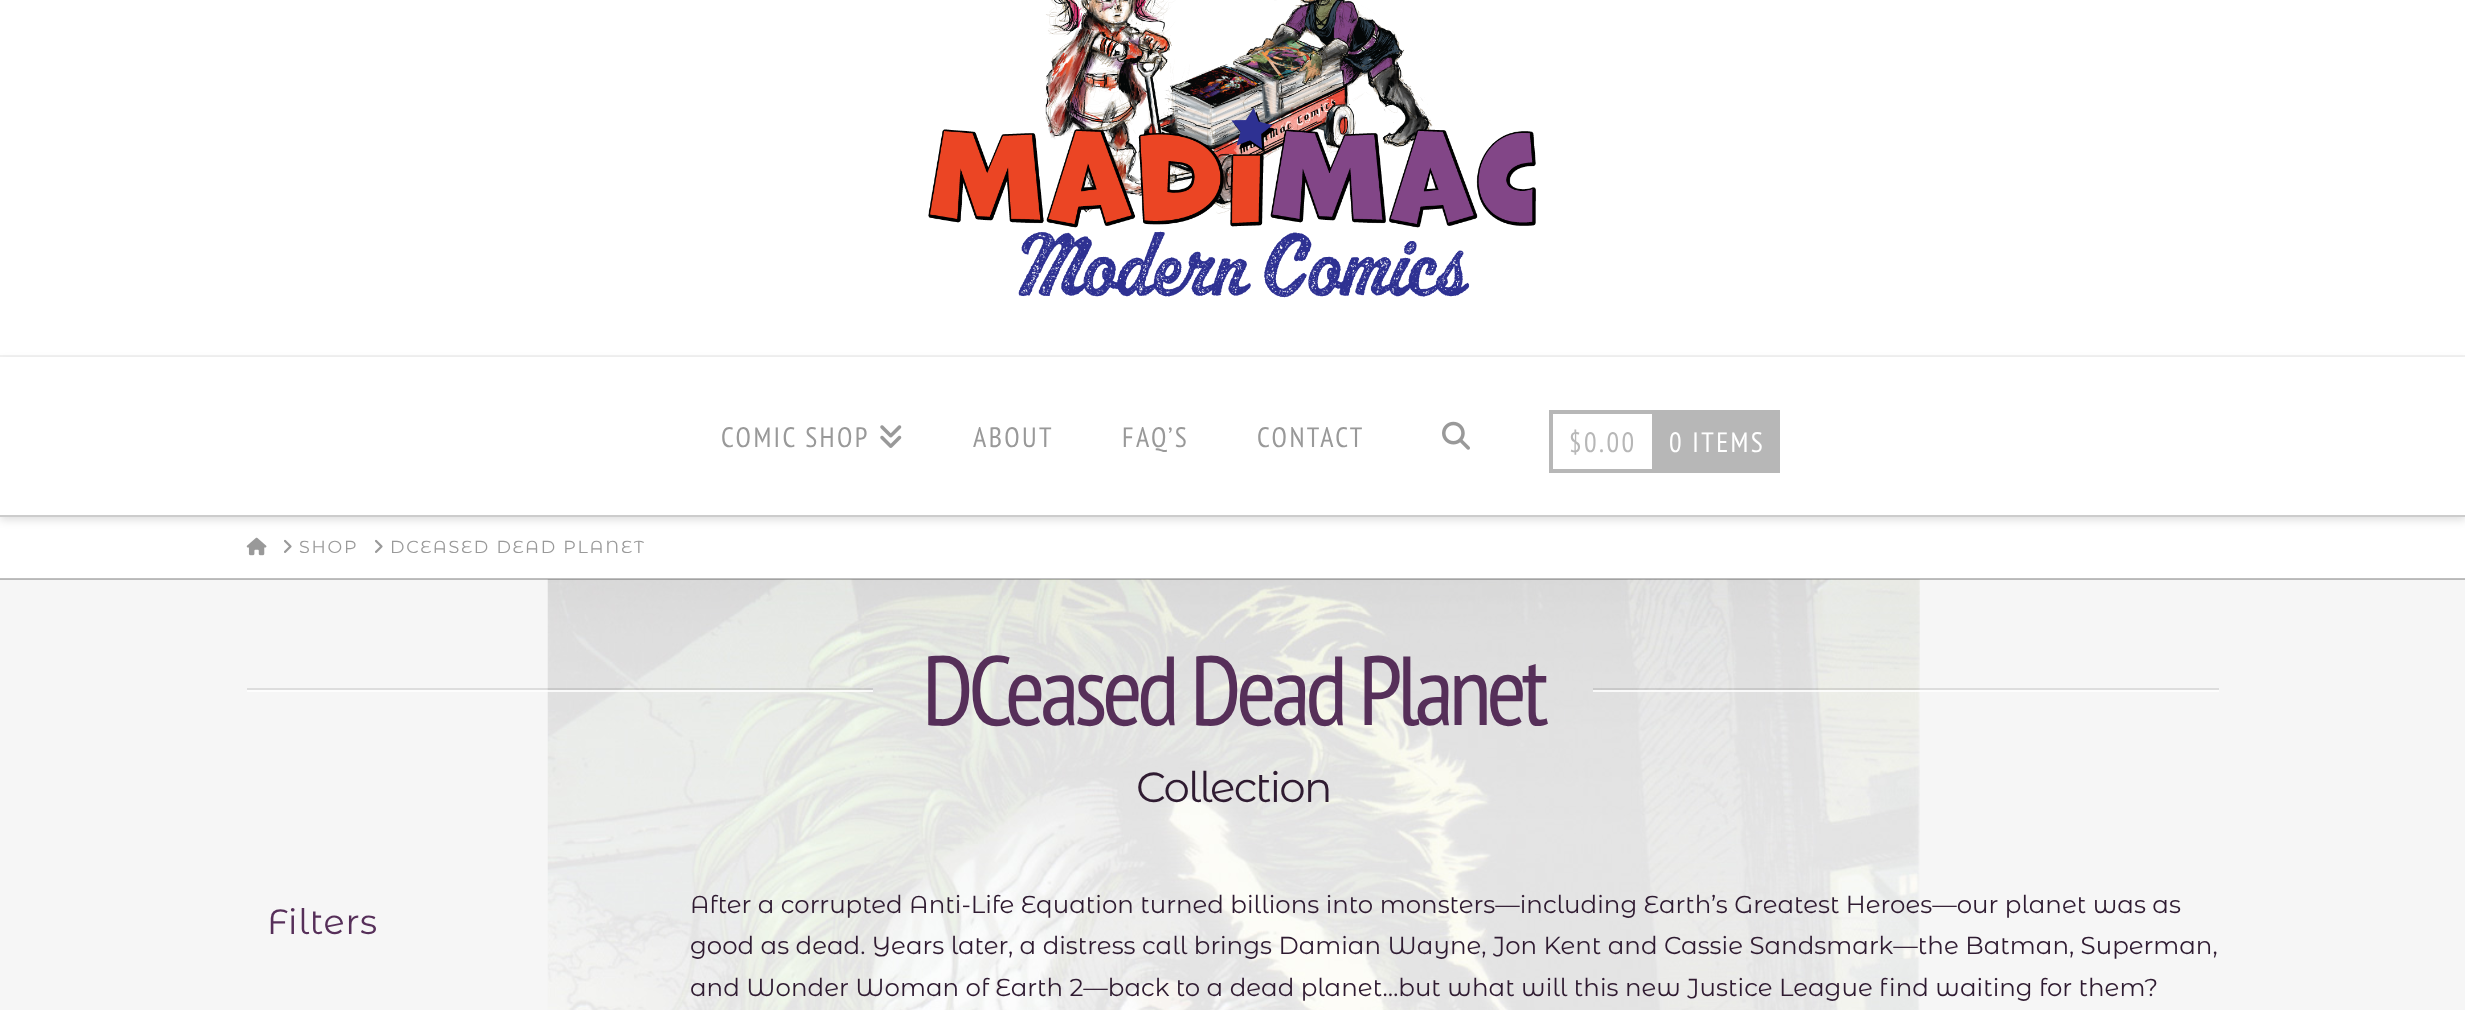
<svg xmlns="http://www.w3.org/2000/svg" width="2465" height="1010" viewBox="0 0 2465 1010">
  <rect width="100%" height="100%" fill="rgb(246,246,246)"/>
  <image x="547" y="579" width="1373" height="431" href="pic1.png"/>
  <rect x="0" y="0" width="2465" height="355" fill="rgb(255,255,255)"/>
  <rect x="0" y="355" width="2465" height="2" fill="rgb(242,242,242)"/>
  <image x="928" y="0" width="608" height="298" href="pic2.png"/>
  <rect x="0" y="517" width="2465" height="62" fill="rgb(255,255,255)"/>
  <rect x="0" y="361" width="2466" height="159" fill="rgba(0,0,0,0.13)" filter="blur(4.5px)"/>
  <rect x="0" y="357" width="2465" height="158" fill="rgb(255,255,255)"/>
  <rect x="0" y="515" width="2465" height="2" fill="rgb(204,204,204)"/>
  <text x="721" y="447" font-family="PT Sans Narrow" font-size="28" letter-spacing="2.4" fill="rgb(153,153,153)">COMIC SHOP</text>
  <image x="880" y="425" width="22" height="23" href="pic3.png"/>
  <g font-family="PT Sans Narrow" font-size="28" letter-spacing="2.4" fill="rgb(153,153,153)">
    <text x="973" y="447">ABOUT</text>
    <text x="1122" y="447">FAQ’S</text>
    <text x="1257" y="447">CONTACT</text>
  </g>
  <image x="1442" y="421" width="28" height="29" href="pic4.png"/>
  <rect x="1549" y="410" width="231" height="4" fill="rgb(183,183,183)"/>
  <rect x="1549" y="469" width="231" height="4" fill="rgb(183,183,183)"/>
  <rect x="1549" y="410" width="4" height="63" fill="rgb(183,183,183)"/>
  <text x="1569" y="452" font-family="PT Sans Narrow" font-size="28" letter-spacing="2.4" fill="rgb(183,183,183)">$0.00</text>
  <rect x="1652" y="414" width="128" height="55" fill="rgb(183,183,183)"/>
  <text x="1669" y="452" font-family="PT Sans Narrow" font-size="28" letter-spacing="2.4" fill="rgb(255,255,255)">0 ITEMS</text>
  <rect x="0" y="578" width="2465" height="2" fill="rgba(0,0,0,0.25)"/>
  <image x="246" y="537" width="21" height="19" href="pic5.png"/>
  <image x="284" y="539" width="8" height="14" href="pic6.png"/>
  <text x="299" y="553" font-family="Montserrat Alternates" font-size="17.5" letter-spacing="1.75" fill="rgb(153,153,153)">SHOP</text>
  <image x="375" y="539" width="8" height="14" href="pic6.png"/>
  <text x="390" y="553" font-family="Montserrat Alternates" font-size="17.5" letter-spacing="1.75" fill="rgb(153,153,153)">DCEASED DEAD PLANET</text>
  <rect x="247" y="690" width="626" height="2" fill="rgba(255,255,255,0.8)"/>
  <rect x="247" y="688" width="626" height="2" fill="rgba(0,0,0,0.1)"/>
  <text x="922" y="725" font-family="PT Sans Narrow" font-size="98" letter-spacing="-5.25" fill="rgb(86,47,89)">DCeased Dead Planet</text>
  <rect x="1593" y="690" width="626" height="2" fill="rgba(255,255,255,0.8)"/>
  <rect x="1593" y="688" width="626" height="2" fill="rgba(0,0,0,0.1)"/>
  <text x="1136" y="802" font-family="Montserrat Alternates" font-size="42" letter-spacing="-1.75" fill="rgb(47,27,49)">Collection</text>
  <text x="267" y="934" font-family="Montserrat Alternates" font-size="35" letter-spacing="0.75" fill="rgb(86,47,89)">Filters</text>
  <g font-family="Montserrat Alternates" font-size="24.5" fill="rgb(47,27,49)">
    <text>
      <tspan x="690" y="913">After a corrupted Anti-Life Equation turned billions into monsters—including Earth’s Greatest Heroes—our planet was as</tspan>
      <tspan x="690" y="954">good as dead. Years later, a distress call brings Damian Wayne, Jon Kent and Cassie Sandsmark—the Batman, Superman,</tspan>
      <tspan x="690" y="996">and Wonder Woman of Earth 2—back to a dead planet…but what will this new Justice League find waiting for them?</tspan>
    </text>
  </g>
</svg>
